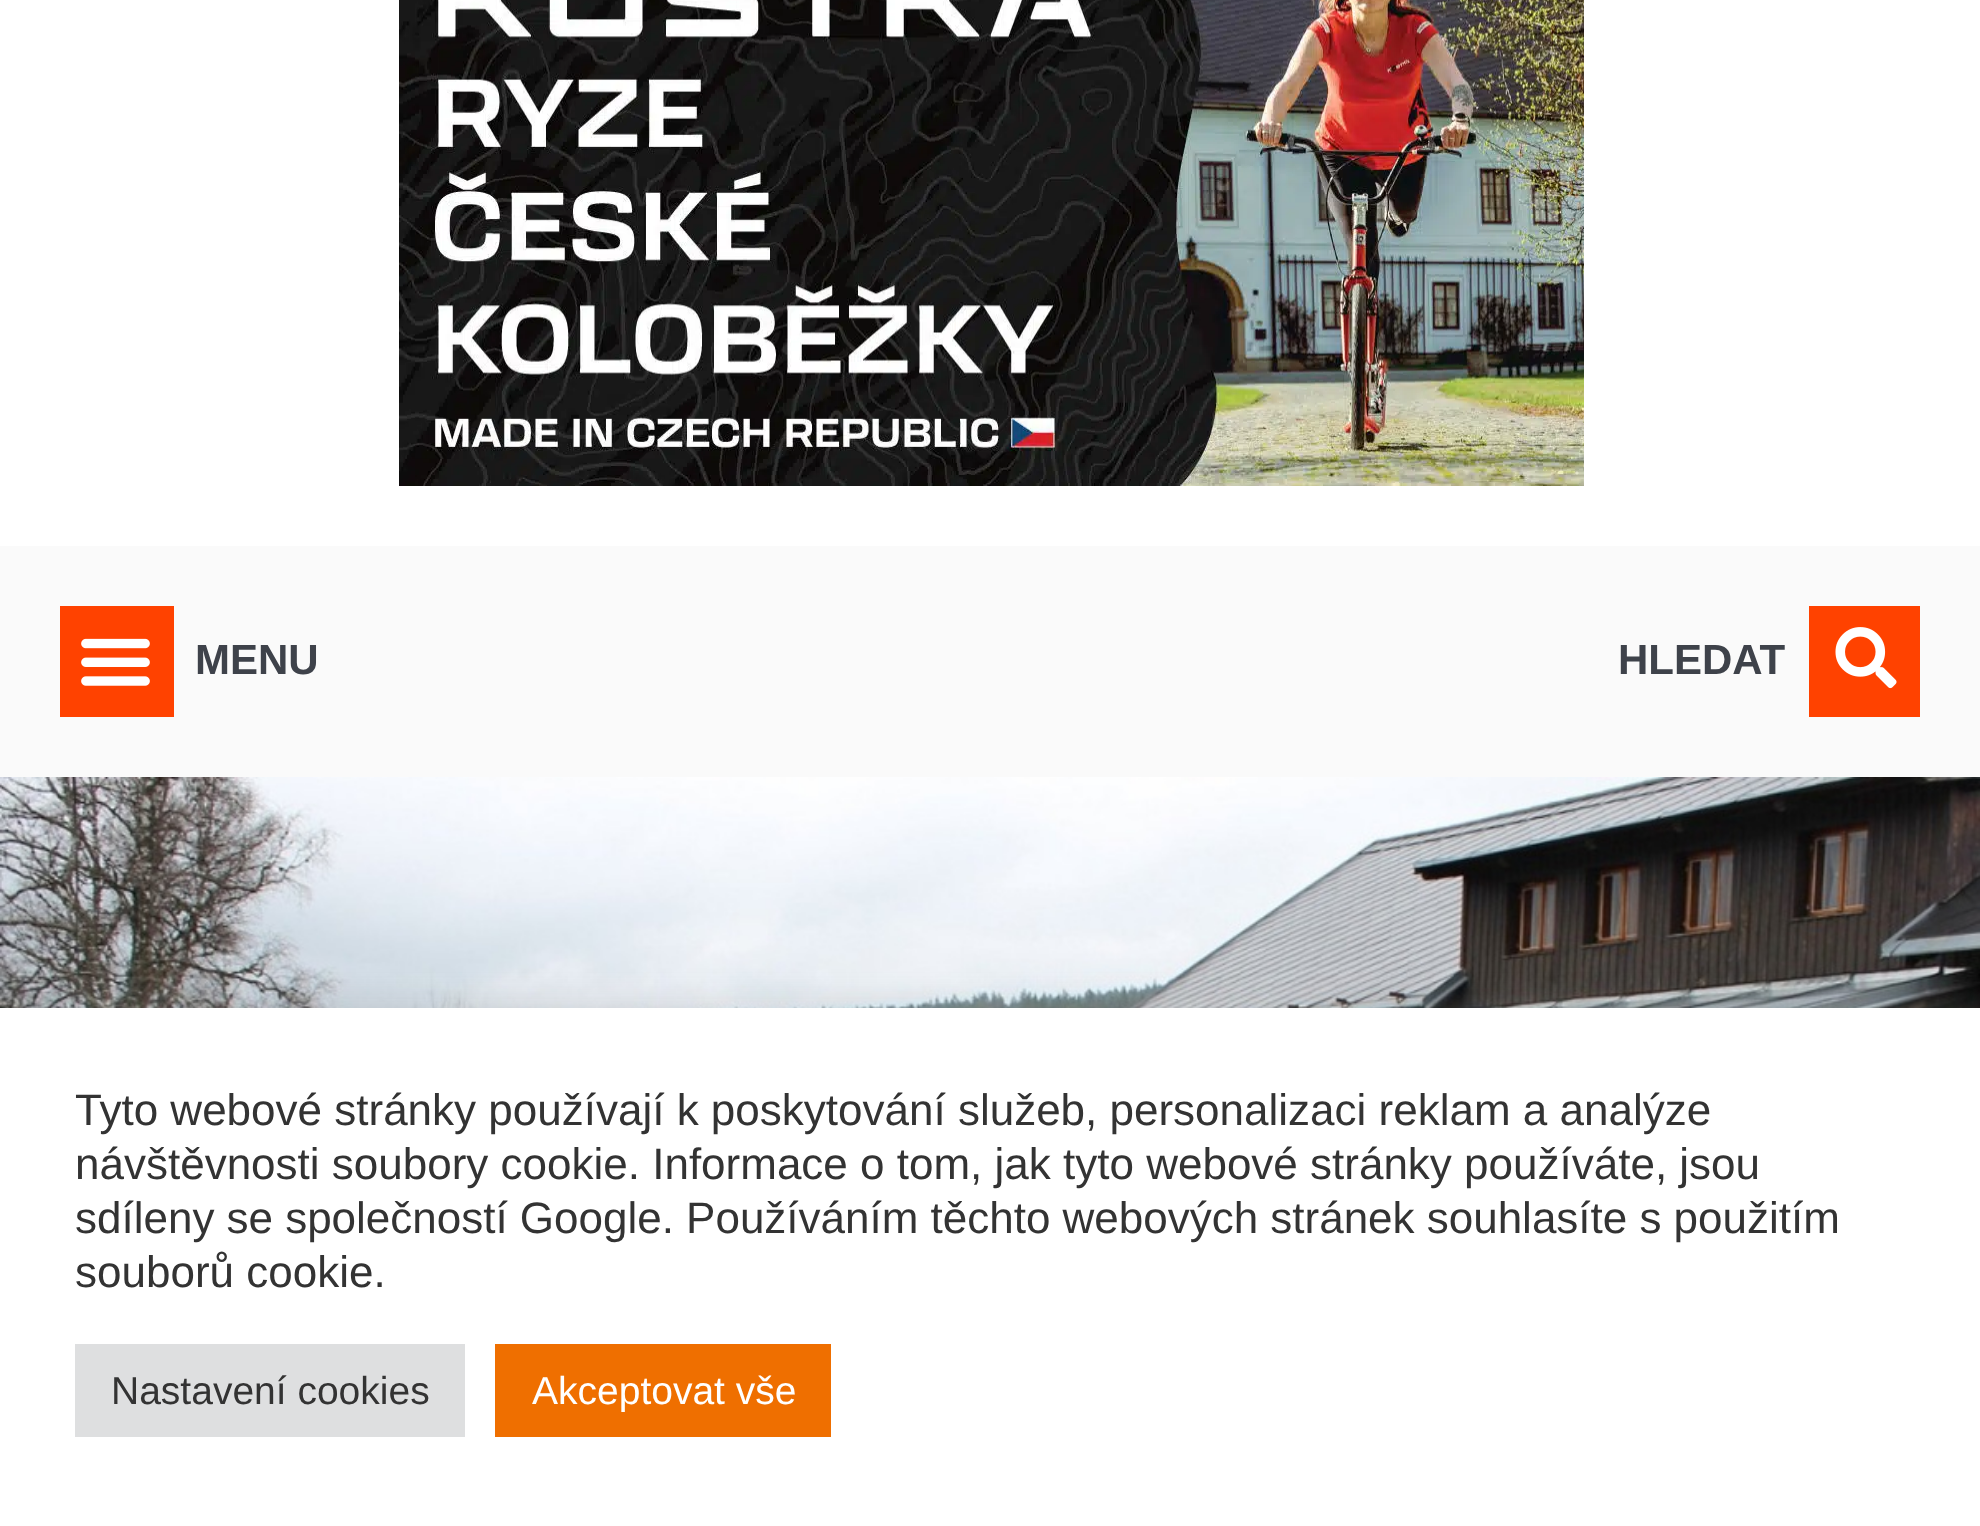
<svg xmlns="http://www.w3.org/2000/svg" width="1980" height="1526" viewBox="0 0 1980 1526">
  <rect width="100%" height="100%" fill="rgb(255,255,255)"/>
  <image x="399" y="0" width="1185" height="486" href="pic1.png"/>
  <rect x="0" y="546" width="1980" height="231" fill="rgb(250,250,250)"/>
  <rect x="60" y="606" width="114" height="111" fill="rgb(255,66,0)"/>
  <image x="81" y="638" width="69" height="48" href="pic2.png"/>
  <g font-family="Liberation Sans" font-size="42" font-weight="bold" fill="rgb(62,66,74)">
    <text x="195" y="674">MENU</text>
    <text x="1618" y="674">HLEDAT</text>
  </g>
  <rect x="1809" y="606" width="111" height="111" fill="rgb(255,66,0)"/>
  <image x="1835" y="627" width="62" height="62" href="pic3.png"/>
  <image x="0" y="777" width="1980" height="231" href="pic4.png"/>
  <rect x="0" y="1005" width="1980" height="519" fill="rgba(172,171,171,0.3)" filter="blur(15px)"/>
  <rect x="0" y="1008" width="1980" height="518" fill="rgb(255,255,255)"/>
  <g font-family="Liberation Sans" font-size="44" fill="rgb(51,51,51)">
    <text>
      <tspan x="75" y="1125">Tyto webové stránky používají k poskytování služeb, personalizaci reklam a analýze</tspan>
      <tspan x="75" y="1179">návštěvnosti soubory cookie. Informace o tom, jak tyto webové stránky používáte, jsou</tspan>
      <tspan x="75" y="1233" word-spacing="-0.1">sdíleny se společností Google. Používáním těchto webových stránek souhlasíte s použitím</tspan>
      <tspan x="75" y="1287">souborů cookie.</tspan>
    </text>
  </g>
  <rect x="75" y="1344" width="390" height="93" fill="rgb(222,223,224)"/>
  <text x="111" y="1404" font-family="Liberation Sans" font-size="39" fill="rgb(51,51,51)">Nastavení cookies</text>
  <rect x="495" y="1344" width="336" height="93" fill="rgb(239,111,0)"/>
  <text x="532" y="1404" font-family="Liberation Sans" font-size="39" fill="rgb(255,255,255)">Akceptovat vše</text>
</svg>
